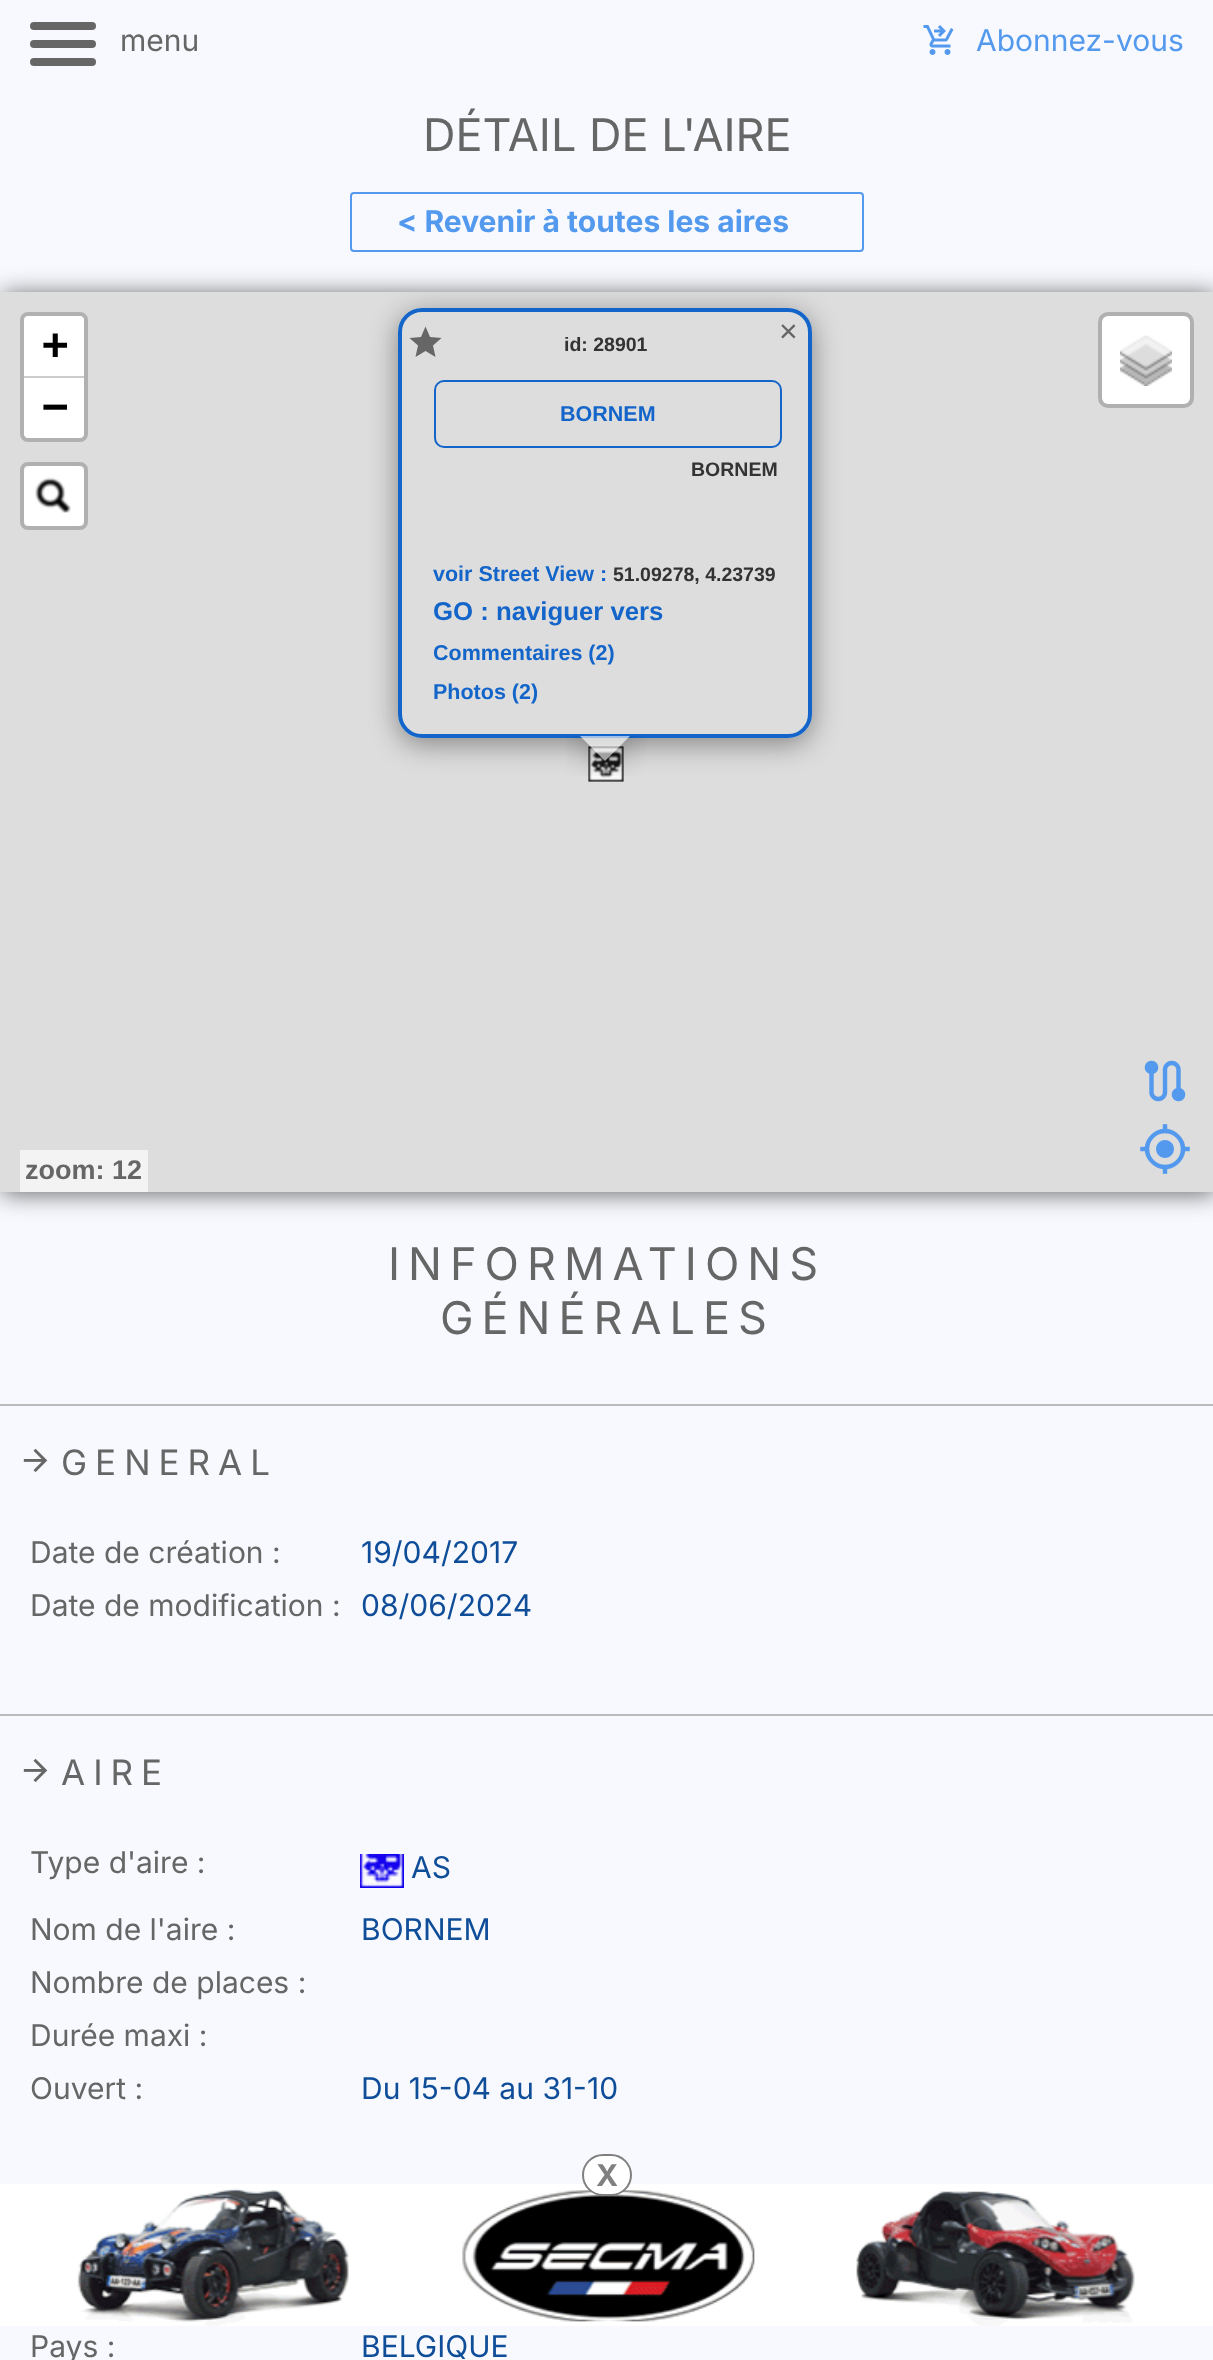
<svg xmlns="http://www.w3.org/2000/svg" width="1213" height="2360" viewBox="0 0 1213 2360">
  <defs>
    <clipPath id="clip1"><rect x="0" y="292" width="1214" height="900"/></clipPath>
    <clipPath id="clip2"><path d="M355 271H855V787H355ZM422 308H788C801.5 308 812 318.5 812 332V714C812 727.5 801.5 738 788 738H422C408.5 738 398 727.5 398 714V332C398 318.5 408.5 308 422 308Z" clip-rule="evenodd"/></clipPath>
    <clipPath id="clip3"><rect x="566" y="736" width="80" height="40"/></clipPath>
    <clipPath id="clip4"><path d="M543 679H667V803H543ZM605 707L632 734L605 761L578.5 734Z" clip-rule="evenodd"/></clipPath>
    <clipPath id="clip5"><rect x="566" y="736" width="80" height="40"/></clipPath>
  </defs>
  <rect width="100%" height="100%" fill="rgb(247,249,254)"/>
  <rect x="30" y="22" width="66" height="8" rx="4" fill="rgb(102,102,102)"/>
  <rect x="30" y="40" width="66" height="8" rx="4" fill="rgb(102,102,102)"/>
  <text x="120" y="51" font-family="Inter" font-size="30" fill="rgb(102,102,102)">menu</text>
  <rect x="30" y="58" width="66" height="8" rx="4" fill="rgb(102,102,102)"/>
  <image x="923" y="25" width="31" height="30" href="pic1.png"/>
  <text x="976" y="51" font-family="Inter" font-size="30" fill="rgb(83,153,238)">Abonnez-vous</text>
  <text x="423" y="151" font-family="Inter" font-size="45" fill="rgb(102,102,102)">DÉTAIL DE L'AIRE</text>
  <rect x="351" y="193" width="512" height="58" rx="3" fill="none" stroke="rgb(83,153,238)" stroke-width="2"/>
  <text x="397" y="232" font-family="Inter" font-size="30" font-weight="bold" fill="rgb(83,153,238)">&lt; Revenir à toutes les aires</text>
  <image x="0" y="2184" width="1213" height="142" href="pic2.png"/>
  <rect x="583" y="2155" width="48" height="40" rx="20" fill="rgb(255,255,255)" stroke="rgb(128,128,128)" stroke-width="2"/>
  <text x="596" y="2186" font-family="Inter" font-size="30" font-weight="bold" fill="rgb(128,128,128)">X</text>
  <rect x="2" y="294" width="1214" height="900" fill="rgb(102,102,102)" filter="blur(12px)"/>
  <rect x="0" y="292" width="1213" height="900" fill="rgb(221,221,221)"/>
  <rect x="22" y="314" width="64" height="126" rx="6" fill="none" stroke="rgb(177,177,177)" stroke-width="4"/>
  <path d="M28 316H80C82 316 84 318 84 320V378H24V320C24 318 26 316 28 316Z" fill="rgb(255,255,255)"/>
  <rect x="24" y="376" width="60" height="2" fill="rgb(204,204,204)"/>
  <text x="42" y="359" font-family="DejaVu Sans Mono" font-size="44" font-weight="bold" fill="rgb(0,0,0)">+</text>
  <path d="M24 378H84V434C84 436 82 438 80 438H28C26 438 24 436 24 434Z" fill="rgb(255,255,255)"/>
  <text x="42" y="421" font-family="DejaVu Sans Mono" font-size="44" font-weight="bold" fill="rgb(0,0,0)">−</text>
  <rect x="24" y="466" width="60" height="60" rx="4" fill="rgb(248,248,248)"/>
  <rect x="22" y="464" width="64" height="64" rx="6" fill="none" stroke="rgba(0,0,0,0.2)" stroke-width="4"/>
  <rect x="24" y="466" width="60" height="60" rx="8" fill="rgb(255,255,255)"/>
  <image x="35" y="477" width="36" height="36" href="pic3.png"/>
  <rect x="1102" y="316" width="88" height="88" rx="6" fill="rgb(255,255,255)"/>
  <rect x="1100" y="314" width="92" height="92" rx="8" fill="none" stroke="rgba(0,0,0,0.2)" stroke-width="4"/>
  <image x="1120" y="335" width="52" height="51" href="pic4.png"/>
  <image x="588" y="746" width="36" height="36" href="pic5.png"/>
  <g clip-path="url(#clip1)">
    <g clip-path="url(#clip2)">
      <rect x="398" y="314" width="414" height="430" rx="24" fill="rgba(0,0,0,0.4)" filter="blur(14px)"/>
    </g>
  </g>
  <rect x="400" y="310" width="410" height="426" rx="22" fill="none" stroke="rgb(19,101,201)" stroke-width="4"/>
  <text x="779" y="342" font-family="Liberation Sans" font-size="32" fill="rgb(102,102,102)">×</text>
  <path d="M425.5 351L415.5 357L418 345.5L409.5 338L421 337L425.5 326.5L430 337L441.5 338L433 345.5L435.5 357Z" fill="rgb(102,102,102)"/>
  <text x="564" y="351" font-family="Liberation Sans" font-size="19.5" font-weight="bold" fill="rgb(51,51,51)">id: 28901</text>
  <rect x="435" y="381" width="346" height="66" rx="9" fill="none" stroke="rgb(19,101,201)" stroke-width="2"/>
  <text x="560" y="421" font-family="Liberation Sans" font-size="21.5" font-weight="bold" fill="rgb(19,101,201)">BORNEM</text>
  <text x="691" y="476" font-family="Liberation Sans" font-size="19.5" font-weight="bold" fill="rgb(51,51,51)">BORNEM</text>
  <text x="433" y="581" font-family="Liberation Sans" font-size="21.5" font-weight="bold" fill="rgb(19,101,201)">voir Street View :</text>
  <text x="613" y="581" font-family="Liberation Sans" font-size="19.5" font-weight="bold" fill="rgb(51,51,51)">51.09278, 4.23739</text>
  <text x="433" y="620" font-family="Liberation Sans" font-size="25.75" font-weight="bold" fill="rgb(19,101,201)">GO : naviguer vers</text>
  <g font-family="Liberation Sans" font-size="21.5" font-weight="bold" fill="rgb(19,101,201)">
    <text>
      <tspan x="433" y="660">Commentaires (2)</tspan>
      <tspan x="433" y="699">Photos (2)</tspan>
    </text>
  </g>
  <g clip-path="url(#clip3)">
    <g clip-path="url(#clip4)">
      <rect x="586" y="722" width="38" height="38" fill="rgba(0,0,0,0.24)" filter="blur(14px)"/>
    </g>
  </g>
  <g clip-path="url(#clip5)">
    <path d="M605 707L632 734L605 761L578 734Z" fill="rgba(255,255,255,0.6)"/>
  </g>
  <image x="1144" y="1060" width="42" height="42" href="pic6.png"/>
  <rect x="20" y="1150" width="128" height="42" fill="rgb(243,243,243)"/>
  <text x="25" y="1179" font-family="Liberation Sans" font-size="27" font-weight="bold" fill="rgb(102,102,102)">zoom: 12</text>
  <image x="1140" y="1124" width="50" height="50" href="pic7.png"/>
  <g font-family="Inter" font-size="45" letter-spacing="8" fill="rgb(102,102,102)">
    <text x="388" y="1280">INFORMATIONS</text>
    <text x="440" y="1334">GÉNÉRALES</text>
  </g>
  <rect x="0" y="1404" width="1213" height="2" fill="rgb(186,186,186)"/>
  <image x="23" y="1448" width="25" height="25" href="pic8.png"/>
  <text x="61" y="1475" font-family="Inter" font-size="35" letter-spacing="8" fill="rgb(102,102,102)">GENERAL</text>
  <text x="30" y="1563" font-family="Inter" font-size="30" fill="rgb(102,102,102)">Date de création :</text>
  <text x="361" y="1563" font-family="Inter" font-size="30" fill="rgb(15,77,153)">19/04/2017</text>
  <text x="30" y="1616" font-family="Inter" font-size="30" fill="rgb(102,102,102)">Date de modification :</text>
  <text x="361" y="1616" font-family="Inter" font-size="30" fill="rgb(15,77,153)">08/06/2024</text>
  <rect x="0" y="1714" width="1213" height="2" fill="rgb(186,186,186)"/>
  <image x="23" y="1758" width="25" height="25" href="pic8.png"/>
  <text x="61" y="1785" font-family="Inter" font-size="35" letter-spacing="8" fill="rgb(102,102,102)">AIRE</text>
  <text x="30" y="1873" font-family="Inter" font-size="30" fill="rgb(102,102,102)">Type d'aire :</text>
  <image x="360" y="1854" width="44" height="34" href="pic9.png"/>
  <text x="411" y="1878" font-family="Inter" font-size="30" fill="rgb(15,77,153)">AS</text>
  <text x="30" y="1940" font-family="Inter" font-size="30" fill="rgb(102,102,102)">Nom de l'aire :</text>
  <text x="361" y="1940" font-family="Inter" font-size="30" fill="rgb(15,77,153)">BORNEM</text>
  <g font-family="Inter" font-size="30" fill="rgb(102,102,102)">
    <text>
      <tspan x="30" y="1993">Nombre de places :</tspan>
      <tspan x="30" y="2046">Durée maxi :</tspan>
      <tspan x="30" y="2099">Ouvert :</tspan>
    </text>
  </g>
  <text x="361" y="2099" font-family="Inter" font-size="30" fill="rgb(15,77,153)">Du 15-04 au 31-10</text>
  <text x="30" y="2357" font-family="Inter" font-size="30" fill="rgb(102,102,102)">Pays :</text>
  <text x="361" y="2357" font-family="Inter" font-size="30" fill="rgb(15,77,153)">BELGIQUE</text>
</svg>
